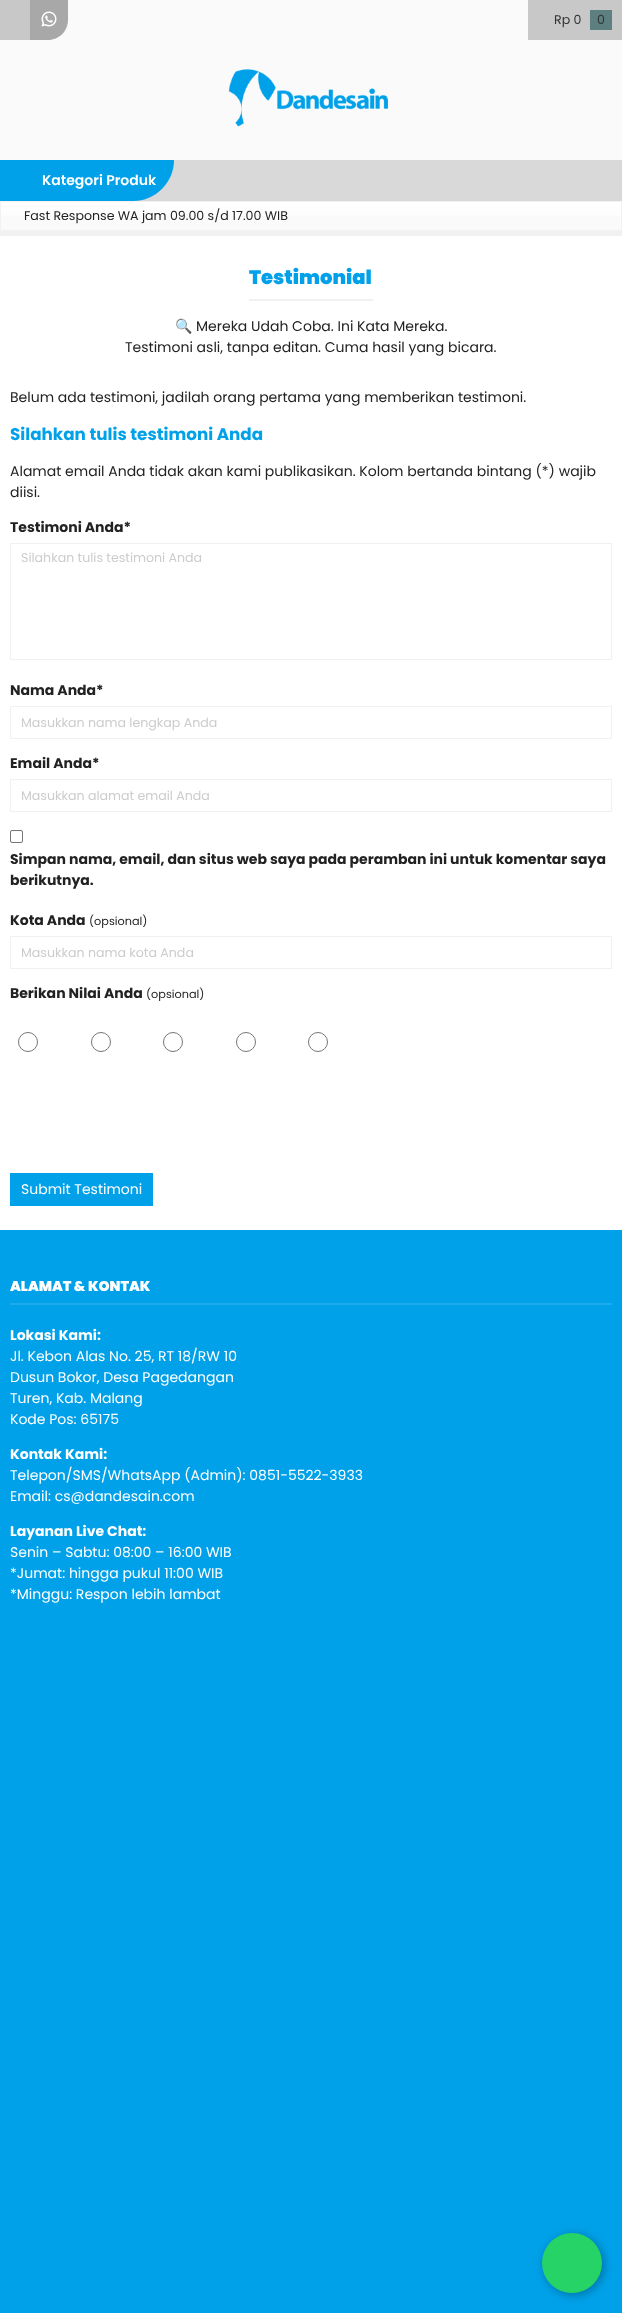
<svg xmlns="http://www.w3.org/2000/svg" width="622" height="2313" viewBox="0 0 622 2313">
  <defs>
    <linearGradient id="g1" gradientUnits="userSpaceOnUse" x1="311" y1="230" x2="311" y2="202"><stop offset="0" stop-color="rgb(250,250,250)"/><stop offset="1" stop-color="rgb(255,255,255)"/></linearGradient>
  </defs>
  <rect width="100%" height="100%" fill="rgb(250,250,250)"/>
  <rect x="0" y="0" width="30" height="40" fill="rgb(200,200,200)"/>
  <path d="M30 0H68V20C68 31 59 40 48 40H30Z" fill="rgb(168,168,168)"/>
  <image x="41" y="11" width="16" height="16" href="pic1.png"/>
  <rect x="528" y="0" width="94" height="40" fill="rgb(200,200,200)"/>
  <text x="554" y="24" font-family="Poppins" font-size="12.6" fill="rgb(51,51,51)">Rp 0</text>
  <rect x="590" y="10" width="22" height="20" fill="rgb(93,127,127)"/>
  <text x="597" y="24" font-family="Poppins" font-size="12.6" fill="rgb(51,51,51)">0</text>
  <image x="228" y="69" width="160" height="58" href="pic2.png"/>
  <rect x="133" y="160" width="489" height="41" fill="rgb(217,217,217)"/>
  <path d="M0 160H174C174 182.5 155.5 201 133 201H0Z" fill="rgb(0,161,233)"/>
  <text x="42" y="185" font-family="Poppins" font-size="14" font-weight="600" fill="rgb(255,255,255)">Kategori Produk</text>
  <rect x="1" y="202" width="620" height="14" fill="url(#g1)"/>
  <rect x="0.5" y="201.5" width="621" height="29" fill="none" stroke="rgb(242,242,242)"/>
  <text x="24" y="220" font-family="Poppins" font-size="12.6" fill="rgb(34,34,34)">Fast Response WA jam 09.00 s/d 17.00 WIB</text>
  <rect x="0" y="236" width="622" height="994" fill="rgb(255,255,255)"/>
  <rect x="0" y="231" width="622" height="5" fill="rgb(241,241,241)"/>
  <rect x="249" y="299" width="124" height="2" fill="rgb(241,241,241)"/>
  <text x="249" y="284" font-family="Poppins" font-size="19.5" font-weight="900" fill="rgb(0,161,233)">Testimonial</text>
  <text x="175" y="331" font-family="Noto Color Emoji" font-size="14" fill="rgb(34,34,34)">🔍</text>
  <g font-family="Poppins" font-size="14" fill="rgb(34,34,34)">
    <text x="196" y="331">Mereka Udah Coba. Ini Kata Mereka.</text>
    <text x="125" y="352">Testimoni asli, tanpa editan. Cuma hasil yang bicara.</text>
    <text x="10" y="402">Belum ada testimoni, jadilah orang pertama yang memberikan testimoni.</text>
  </g>
  <text x="10" y="440" font-family="Poppins" font-size="16.75" font-weight="bold" fill="rgb(0,161,233)">Silahkan tulis testimoni Anda</text>
  <g font-family="Poppins" font-size="14" fill="rgb(34,34,34)">
    <text>
      <tspan x="10" y="476">Alamat email Anda tidak akan kami publikasikan. Kolom bertanda bintang (*) wajib</tspan>
      <tspan x="10" y="497">diisi.</tspan>
    </text>
  </g>
  <text x="10" y="532" font-family="Poppins" font-size="14" font-weight="bold" fill="rgb(34,34,34)">Testimoni Anda*</text>
  <rect x="10.5" y="543.5" width="601" height="116" fill="none" stroke="rgb(241,241,241)"/>
  <text x="21" y="562" font-family="Poppins" font-size="12.6" fill="rgb(204,204,204)">Silahkan tulis testimoni Anda</text>
  <text x="10" y="695" font-family="Poppins" font-size="14" font-weight="bold" fill="rgb(34,34,34)">Nama Anda*</text>
  <rect x="10.5" y="706.5" width="601" height="32" fill="none" stroke="rgb(241,241,241)"/>
  <text x="21" y="727" font-family="Poppins" font-size="12.6" fill="rgb(204,204,204)">Masukkan nama lengkap Anda</text>
  <text x="10" y="768" font-family="Poppins" font-size="14" font-weight="bold" fill="rgb(34,34,34)">Email Anda*</text>
  <rect x="10.5" y="779.5" width="601" height="32" fill="none" stroke="rgb(241,241,241)"/>
  <text x="21" y="800" font-family="Poppins" font-size="12.6" fill="rgb(204,204,204)">Masukkan alamat email Anda</text>
  <rect x="10.5" y="830.5" width="12" height="12" rx="1.5" fill="none" stroke="rgb(118,118,118)"/>
  <g font-family="Poppins" font-size="14" font-weight="bold" fill="rgb(34,34,34)">
    <text>
      <tspan x="10" y="864">Simpan nama, email, dan situs web saya pada peramban ini untuk komentar saya</tspan>
      <tspan x="10" y="885">berikutnya.</tspan>
    </text>
    <text x="10" y="925">Kota Anda</text>
  </g>
  <text x="89" y="925" font-family="Poppins" font-size="11.25" fill="rgb(34,34,34)">(opsional)</text>
  <rect x="10.5" y="936.5" width="601" height="32" fill="none" stroke="rgb(241,241,241)"/>
  <text x="21" y="957" font-family="Poppins" font-size="12.6" fill="rgb(204,204,204)">Masukkan nama kota Anda</text>
  <text x="10" y="998" font-family="Poppins" font-size="14" font-weight="bold" fill="rgb(34,34,34)">Berikan Nilai Anda</text>
  <text x="146" y="998" font-family="Poppins" font-size="11.25" fill="rgb(34,34,34)">(opsional)</text>
  <circle cx="28" cy="1042" r="9.5" fill="none" stroke="rgb(118,118,118)"/>
  <circle cx="101" cy="1042" r="9.5" fill="none" stroke="rgb(118,118,118)"/>
  <circle cx="173" cy="1042" r="9.5" fill="none" stroke="rgb(118,118,118)"/>
  <circle cx="246" cy="1042" r="9.5" fill="none" stroke="rgb(118,118,118)"/>
  <circle cx="318" cy="1042" r="9.5" fill="none" stroke="rgb(118,118,118)"/>
  <rect x="10" y="1173" width="143" height="33" fill="rgb(0,161,233)"/>
  <text x="21" y="1194" font-family="Poppins" font-size="14" fill="rgb(255,255,255)">Submit Testimoni</text>
  <rect x="0" y="1230" width="622" height="1083" fill="rgb(0,161,233)"/>
  <rect x="10" y="1303" width="602" height="2" fill="rgb(28,171,235)"/>
  <text x="10" y="1291" font-family="Poppins" font-size="14" font-weight="900" fill="rgb(255,255,255)">ALAMAT &amp; KONTAK</text>
  <text x="10" y="1340" font-family="Poppins" font-size="14" font-weight="bold" fill="rgb(255,255,255)">Lokasi Kami:</text>
  <g font-family="Poppins" font-size="14" fill="rgb(255,255,255)">
    <text>
      <tspan x="10" y="1361">Jl. Kebon Alas No. 25, RT 18/RW 10</tspan>
      <tspan x="10" y="1382">Dusun Bokor, Desa Pagedangan</tspan>
      <tspan x="10" y="1403">Turen, Kab. Malang</tspan>
      <tspan x="10" y="1424">Kode Pos: 65175</tspan>
    </text>
  </g>
  <text x="10" y="1459" font-family="Poppins" font-size="14" font-weight="bold" fill="rgb(255,255,255)">Kontak Kami:</text>
  <g font-family="Poppins" font-size="14" fill="rgb(255,255,255)">
    <text>
      <tspan x="10" y="1480">Telepon/SMS/WhatsApp (Admin): 0851-5522-3933</tspan>
      <tspan x="10" y="1501">Email: cs@dandesain.com</tspan>
    </text>
  </g>
  <text x="10" y="1536" font-family="Poppins" font-size="14" font-weight="bold" fill="rgb(255,255,255)">Layanan Live Chat:</text>
  <g font-family="Poppins" font-size="14" fill="rgb(255,255,255)">
    <text>
      <tspan x="10" y="1557">Senin – Sabtu: 08:00 – 16:00 WIB</tspan>
      <tspan x="10" y="1578">*Jumat: hingga pukul 11:00 WIB</tspan>
      <tspan x="10" y="1599">*Minggu: Respon lebih lambat</tspan>
    </text>
  </g>
  <rect x="544" y="2235" width="60" height="60" rx="30" fill="rgba(0,0,0,0.3)" filter="blur(5px)"/>
  <circle cx="572" cy="2263" r="30" fill="rgb(37,211,102)"/>
</svg>
